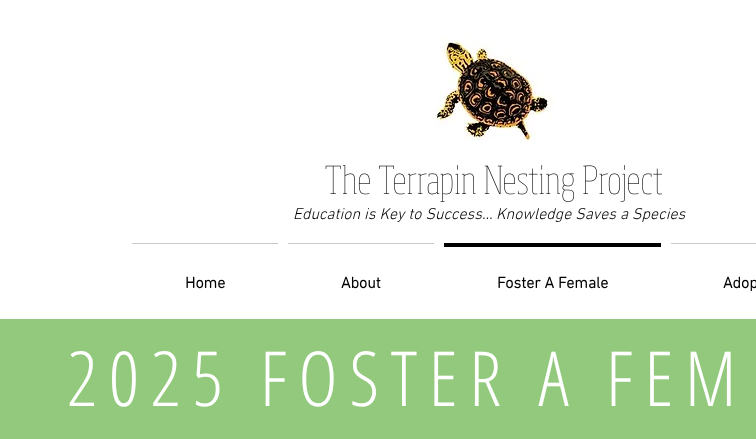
<svg xmlns="http://www.w3.org/2000/svg" width="756" height="439" viewBox="0 0 756 439">
  <rect width="100%" height="100%" fill="rgb(255,255,255)"/>
  <image x="435" y="36" width="120" height="105" href="pic1.png"/>
  <image x="325" y="165" width="337" height="37" href="pic2.png"/>
  <text x="293" y="219" font-family="'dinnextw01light'" font-size="16" font-weight="300" font-style="italic" fill="rgb(0,0,0)">Education is Key to Success... Knowledge Saves a Species</text>
  <rect x="132" y="243" width="146" height="1" fill="rgb(201,201,201)"/>
  <text x="185" y="288" font-family="'dinnextw01light'" font-size="16" font-weight="bold" fill="rgb(0,0,0)">Home</text>
  <rect x="288" y="243" width="146" height="1" fill="rgb(201,201,201)"/>
  <text x="341" y="288" font-family="'dinnextw01light'" font-size="16" font-weight="bold" fill="rgb(0,0,0)">About</text>
  <rect x="444" y="243" width="217" height="4" fill="rgb(0,0,0)"/>
  <text x="497" y="288" font-family="'dinnextw01light'" font-size="16" font-weight="bold" fill="rgb(0,0,0)">Foster A Female</text>
  <rect x="671" y="243" width="85" height="1" fill="rgb(201,201,201)"/>
  <text x="723" y="288" font-family="'dinnextw01light'" font-size="16" font-weight="bold" fill="rgb(0,0,0)">Adop</text>
  <rect x="0" y="319" width="756" height="120" fill="rgb(146,201,125)"/>
  <text x="67" y="406" font-family="Open Sans Condensed" font-size="76" font-weight="300" letter-spacing="11.4" fill="rgb(255,255,255)">2025 FOSTER A FEM</text>
</svg>
